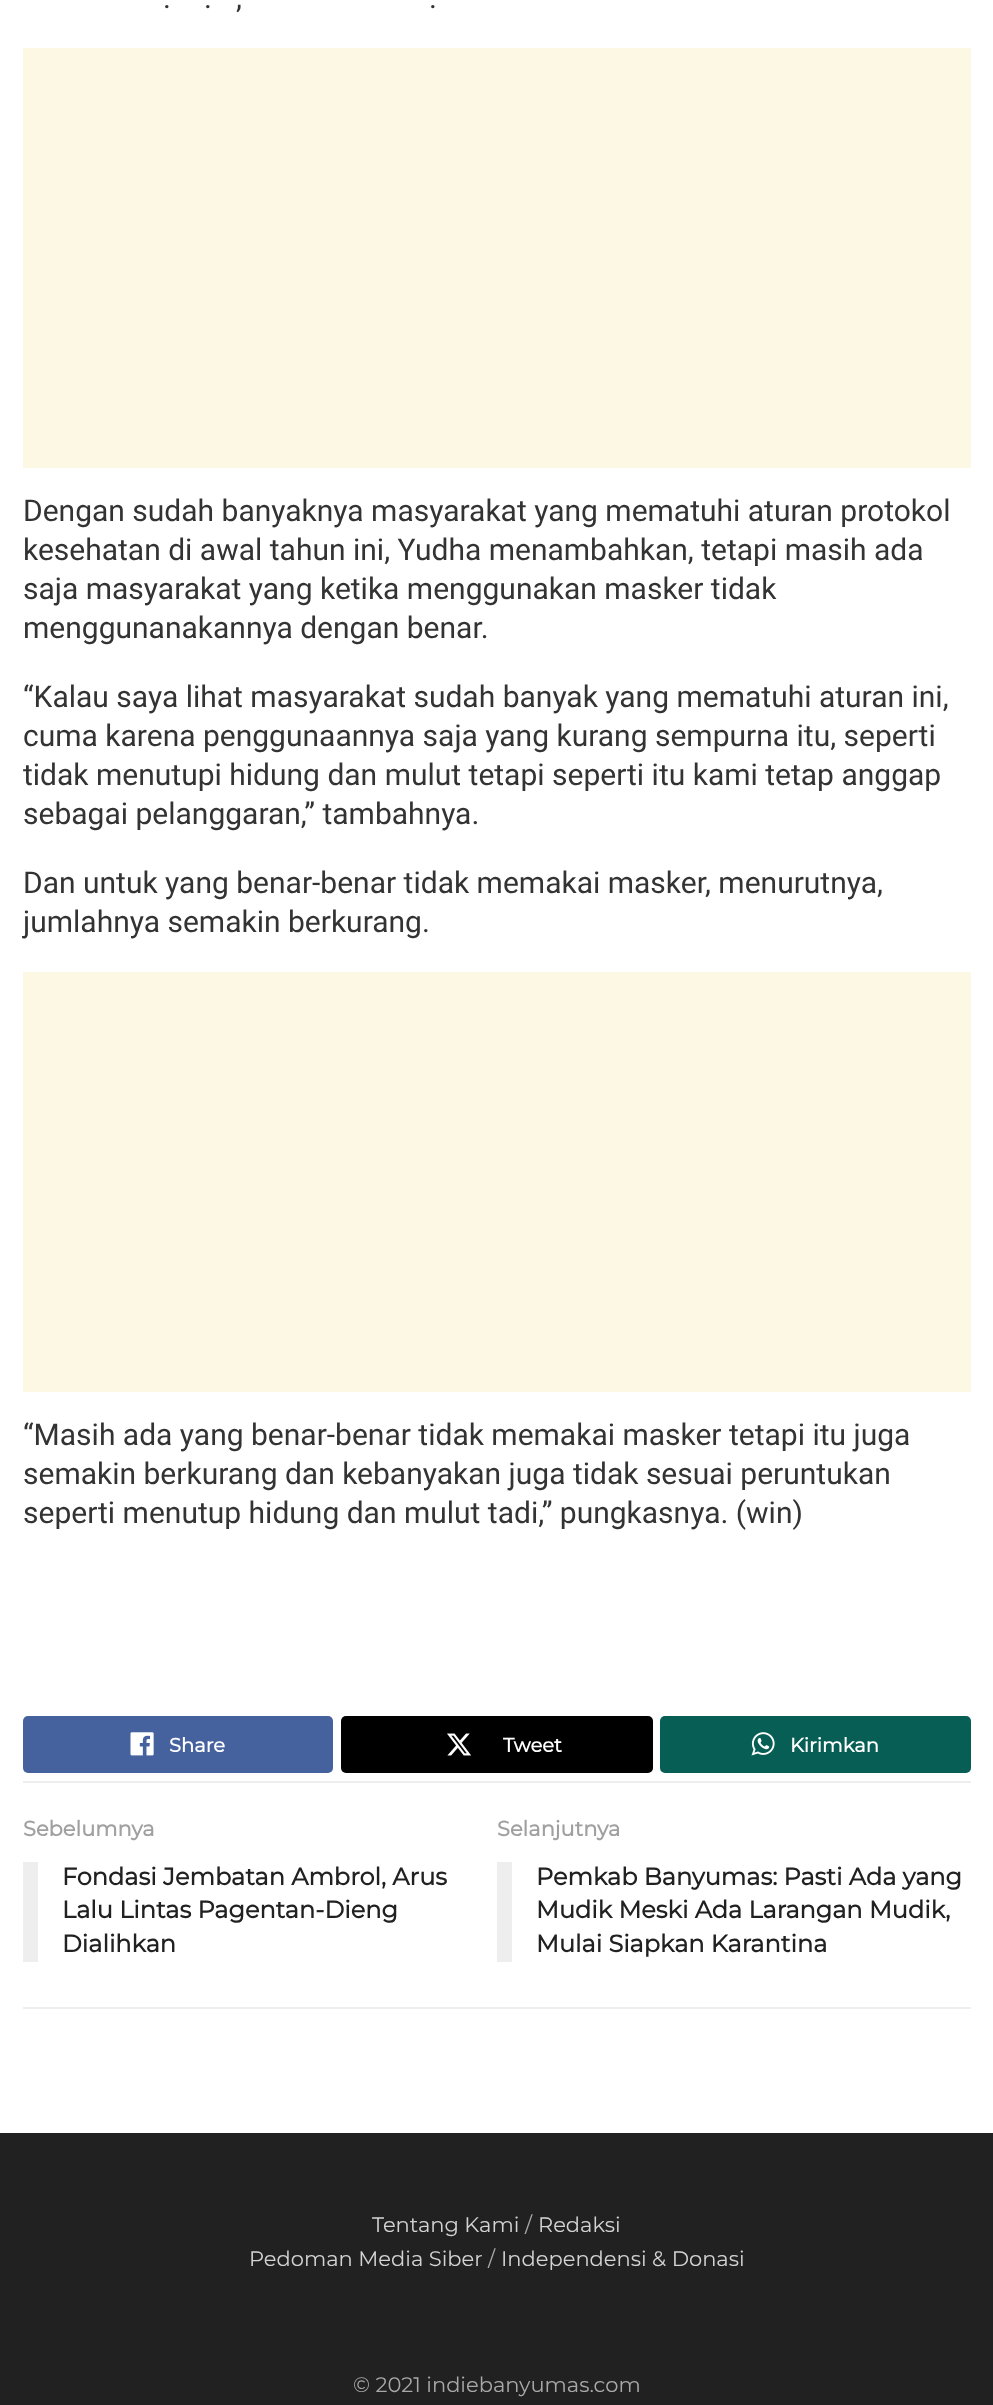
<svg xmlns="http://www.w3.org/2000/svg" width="993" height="2405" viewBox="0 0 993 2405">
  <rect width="100%" height="100%" fill="rgb(255,255,255)"/>
  <g font-family="Roboto" font-size="30" fill="rgb(51,51,51)">
    <text x="163" y="8">.</text>
    <text x="204" y="8">.</text>
    <text x="236" y="8">,</text>
    <text x="429" y="8">.</text>
  </g>
  <rect x="23" y="48" width="948" height="420" fill="rgb(252,248,227)"/>
  <g font-family="Roboto" font-size="30" fill="rgb(51,51,51)">
    <text>
      <tspan x="23" y="521">Dengan sudah banyaknya masyarakat yang mematuhi aturan protokol</tspan>
      <tspan x="23" y="560">kesehatan di awal tahun ini, Yudha menambahkan, tetapi masih ada</tspan>
      <tspan x="23" y="599">saja masyarakat yang ketika menggunakan masker tidak</tspan>
      <tspan x="23" y="638">menggunanakannya dengan benar.</tspan>
    </text>
    <text>
      <tspan x="23" y="707">“Kalau saya lihat masyarakat sudah banyak yang mematuhi aturan ini,</tspan>
      <tspan x="23" y="746">cuma karena penggunaannya saja yang kurang sempurna itu, seperti</tspan>
      <tspan x="23" y="785">tidak menutupi hidung dan mulut tetapi seperti itu kami tetap anggap</tspan>
      <tspan x="23" y="824">sebagai pelanggaran,” tambahnya.</tspan>
    </text>
    <text>
      <tspan x="23" y="893">Dan untuk yang benar-benar tidak memakai masker, menurutnya,</tspan>
      <tspan x="23" y="932">jumlahnya semakin berkurang.</tspan>
    </text>
  </g>
  <rect x="23" y="972" width="948" height="420" fill="rgb(252,248,227)"/>
  <g font-family="Roboto" font-size="30" fill="rgb(51,51,51)">
    <text>
      <tspan x="23" y="1445">“Masih ada yang benar-benar tidak memakai masker tetapi itu juga</tspan>
      <tspan x="23" y="1484">semakin berkurang dan kebanyakan juga tidak sesuai peruntukan</tspan>
      <tspan x="23" y="1523">seperti menutup hidung dan mulut tadi,” pungkasnya. (win)</tspan>
    </text>
  </g>
  <rect x="23" y="1716" width="310" height="57" rx="5" fill="rgb(69,98,159)"/>
  <image x="130" y="1732" width="24" height="24" href="pic1.png"/>
  <text x="169" y="1752" font-family="Montserrat" font-size="19.5" font-weight="bold" fill="rgb(255,255,255)">Share</text>
  <rect x="341" y="1716" width="312" height="57" rx="5" fill="rgb(0,0,0)"/>
  <image x="447" y="1733" width="24" height="23" href="pic2.png"/>
  <text x="503" y="1752" font-family="Montserrat" font-size="19.5" font-weight="bold" fill="rgb(255,255,255)">Tweet</text>
  <rect x="660" y="1716" width="311" height="57" rx="5" fill="rgb(7,94,84)"/>
  <image x="751" y="1732" width="24" height="24" href="pic3.png"/>
  <text x="790" y="1752" font-family="Montserrat" font-size="19.5" font-weight="bold" fill="rgb(255,255,255)">Kirimkan</text>
  <rect x="23" y="1781" width="948" height="2" fill="rgb(238,238,238)"/>
  <rect x="23" y="2007" width="948" height="2" fill="rgb(238,238,238)"/>
  <text x="23" y="1836" font-family="Montserrat" font-size="21" font-weight="bold" fill="rgb(160,160,160)">Sebelumnya</text>
  <rect x="23" y="1862" width="15" height="100" fill="rgb(238,238,238)"/>
  <g font-family="Montserrat" font-size="24" font-weight="bold" fill="rgb(33,33,33)">
    <text>
      <tspan x="62" y="1885">Fondasi Jembatan Ambrol, Arus</tspan>
      <tspan x="62" y="1918">Lalu Lintas Pagentan-Dieng</tspan>
      <tspan x="62" y="1952">Dialihkan</tspan>
    </text>
  </g>
  <text x="497" y="1836" font-family="Montserrat" font-size="21" font-weight="bold" fill="rgb(160,160,160)">Selanjutnya</text>
  <rect x="497" y="1862" width="15" height="100" fill="rgb(238,238,238)"/>
  <g font-family="Montserrat" font-size="24" font-weight="bold" fill="rgb(33,33,33)">
    <text>
      <tspan x="536" y="1885">Pemkab Banyumas: Pasti Ada yang</tspan>
      <tspan x="536" y="1918">Mudik Meski Ada Larangan Mudik,</tspan>
      <tspan x="536" y="1952">Mulai Siapkan Karantina</tspan>
    </text>
  </g>
  <rect x="0" y="2133" width="993" height="272" fill="rgb(33,33,33)"/>
  <text x="372" y="2232" font-family="Montserrat" font-size="21" font-weight="100" fill="rgb(211,211,211)">Tentang Kami</text>
  <text x="525" y="2232" font-family="Montserrat" font-size="21" font-weight="100" fill="rgb(168,168,170)">/</text>
  <g font-family="Montserrat" font-size="21" font-weight="100" fill="rgb(211,211,211)">
    <text x="538" y="2232">Redaksi</text>
    <text x="249" y="2266">Pedoman Media Siber</text>
  </g>
  <text x="488" y="2266" font-family="Montserrat" font-size="21" font-weight="100" fill="rgb(168,168,170)">/</text>
  <text x="501" y="2266" font-family="Montserrat" font-size="21" font-weight="100" fill="rgb(211,211,211)">Independensi &amp; Donasi</text>
  <text x="353" y="2392" font-family="Montserrat" font-size="21" font-weight="100" fill="rgb(168,168,170)">© 2021 indiebanyumas.com</text>
</svg>
